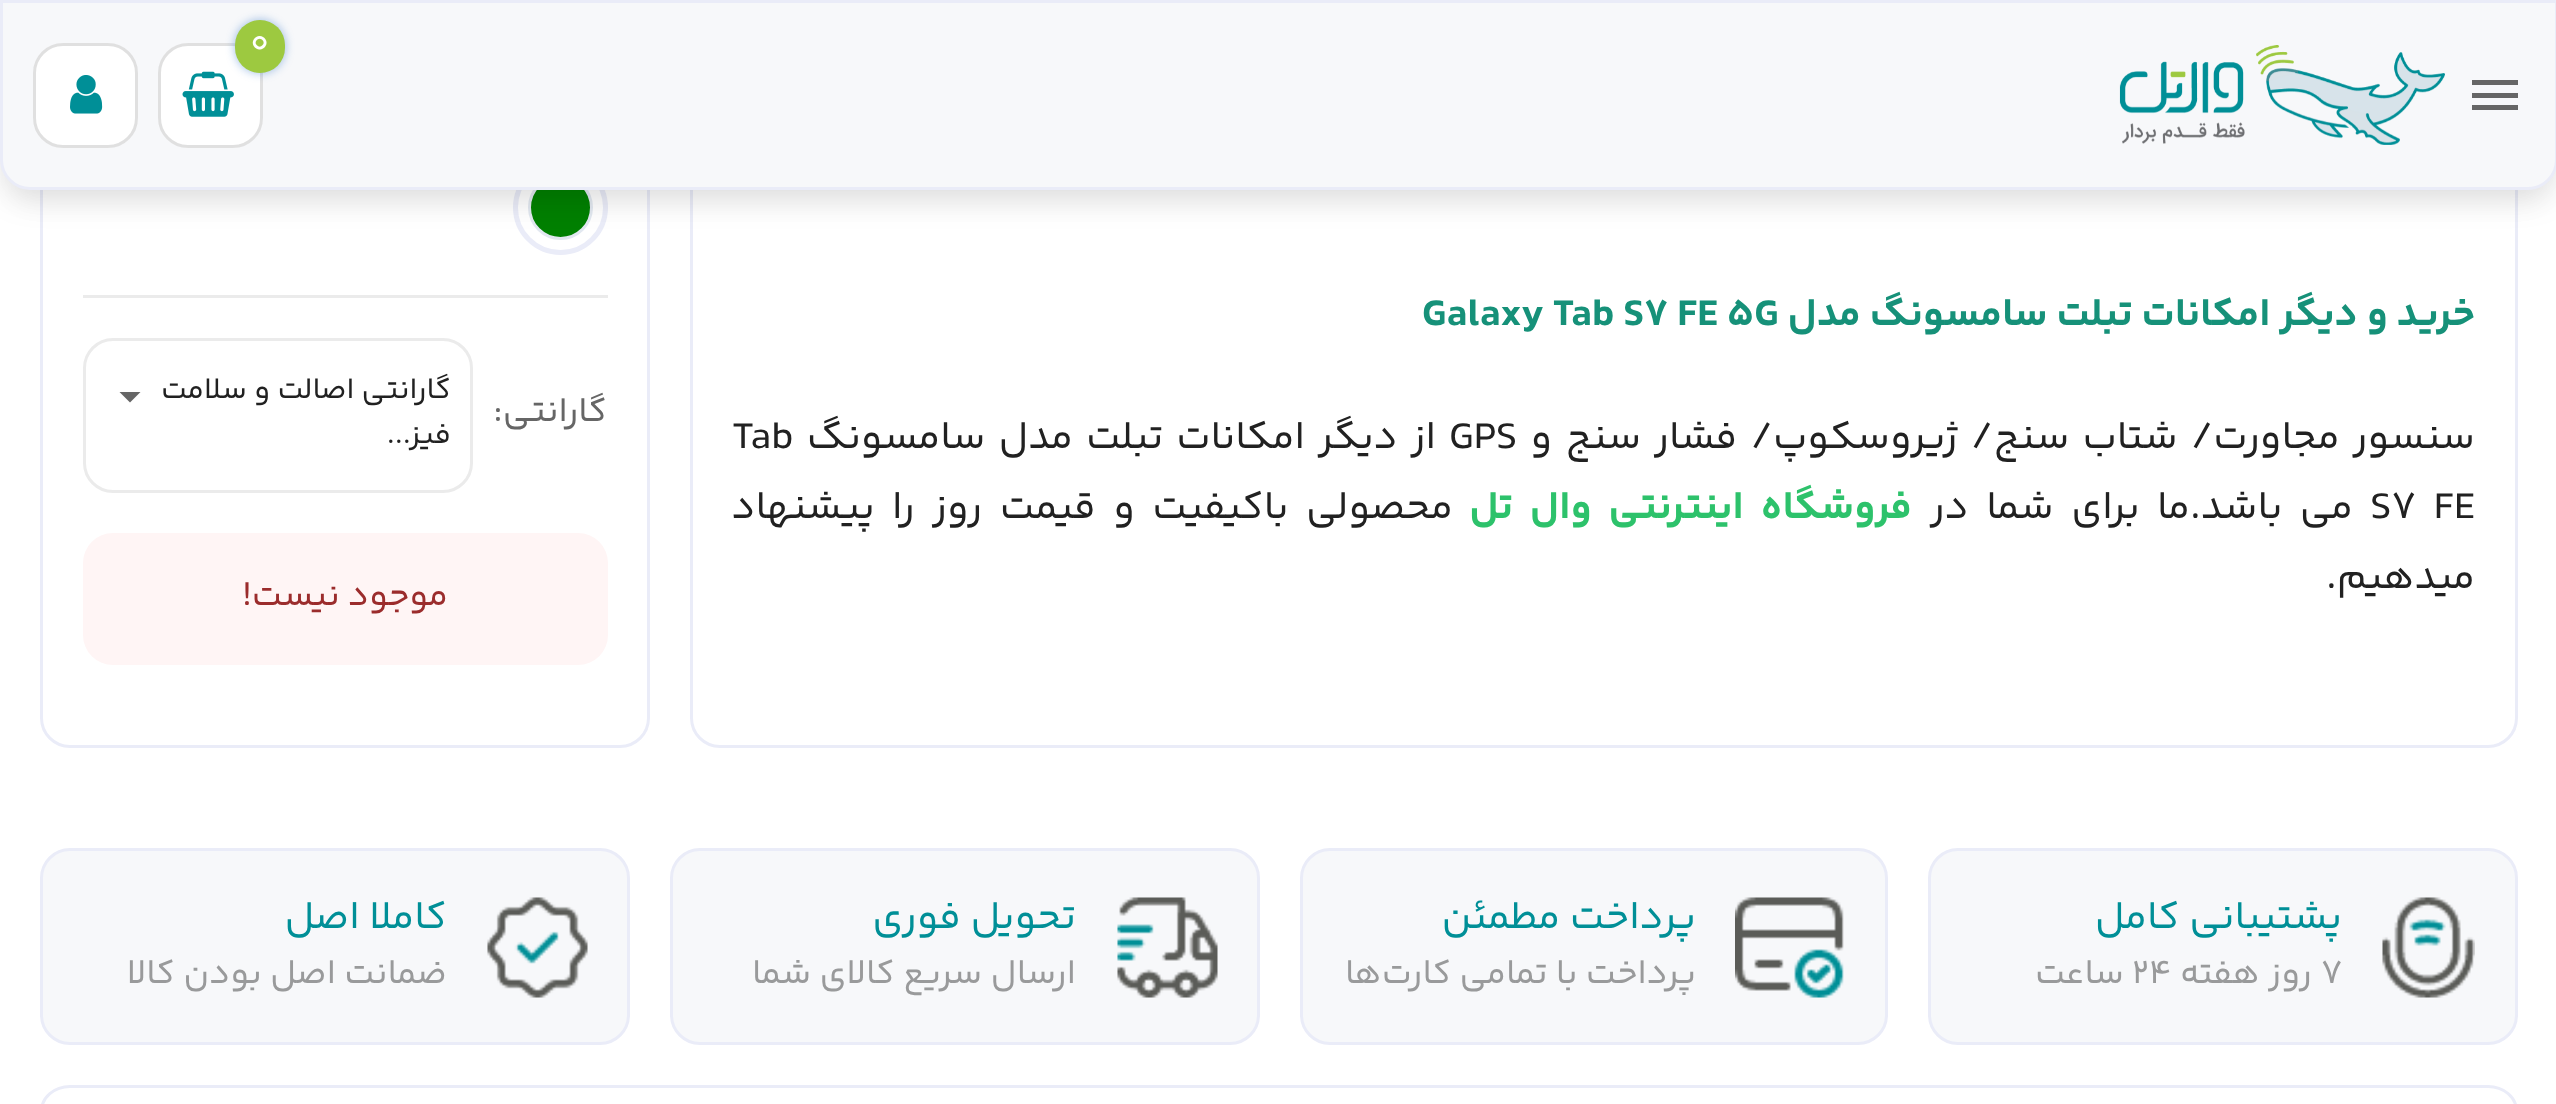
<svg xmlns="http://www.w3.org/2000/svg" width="2556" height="1104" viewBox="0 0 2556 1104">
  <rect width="100%" height="100%" fill="rgb(255,255,255)"/>
  <rect x="691.5" y="-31.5" width="1825" height="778" rx="28.5" fill="none" stroke="rgb(234,236,248)" stroke-width="3"/>
  <rect x="41.5" y="-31.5" width="607" height="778" rx="28.5" fill="none" stroke="rgb(234,236,248)" stroke-width="3"/>
  <circle cx="560.5" cy="207.5" r="45" fill="none" stroke="rgb(234,236,248)" stroke-width="5"/>
  <circle cx="560.5" cy="207.5" r="31" fill="rgb(0,128,0)" stroke="rgb(226,232,240)" stroke-width="3"/>
  <rect x="13" y="38" width="2532" height="165" rx="18" fill="rgba(0,0,0,0.04)" filter="blur(12.5px)"/>
  <rect x="-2" y="3" width="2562" height="195" rx="33" fill="rgba(0,0,0,0.1)" filter="blur(16px)"/>
  <path d="M1.5 1.5H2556.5V160C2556.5 175.5 2543.5 188.5 2528 188.5H30C14.5 188.5 1.5 175.5 1.5 160Z" fill="rgb(247,248,250)" stroke="rgb(234,236,248)" stroke-width="3"/>
  <rect x="158" y="43" width="105" height="105" rx="30" fill="rgb(255,255,255)"/>
  <rect x="159.5" y="44.5" width="102" height="102" rx="28.5" fill="none" stroke="rgba(0,0,0,0.12)" stroke-width="3"/>
  <image x="182" y="71" width="52" height="46" href="pic1.png"/>
  <rect x="235" y="20" width="50" height="53" rx="25" fill="rgba(10,90,189,0.4)" filter="blur(5px)"/>
  <rect x="235" y="20" width="50" height="53" rx="25" fill="rgb(157,201,64)"/>
  <text x="250" y="53" font-family="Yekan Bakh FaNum" font-size="35" fill="rgb(255,255,255)">0</text>
  <rect x="33" y="43" width="105" height="105" rx="30" fill="rgb(255,255,255)"/>
  <rect x="34.5" y="44.5" width="102" height="102" rx="28.5" fill="none" stroke="rgba(0,0,0,0.12)" stroke-width="3"/>
  <image x="70" y="75" width="33" height="39" href="pic2.png"/>
  <path d="M2472 80H2518V85H2472ZM2472 98V93H2518V98ZM2472 110V105H2518V110Z" fill="rgb(102,102,102)"/>
  <image x="2119" y="45" width="326" height="100" href="pic3.png"/>
  <text x="2475" y="325" font-family="Yekan Bakh FaNum" font-size="40" font-weight="bold" direction="rtl" fill="rgb(22,145,121)">خرید و دیگر امکانات تبلت سامسونگ مدل</text>
  <text x="1422" y="325" font-family="Yekan Bakh FaNum" font-size="40" font-weight="bold" fill="rgb(22,145,121)">Galaxy Tab S7 FE 5G</text>
  <text x="2475" y="448" word-spacing="3.5" font-family="Yekan Bakh FaNum" font-size="40" direction="rtl" fill="rgb(33,33,33)">سنسور مجاورت/ شتاب سنج/ ژیروسکوپ/ فشار سنج و</text>
  <text x="1449" y="448" font-family="Yekan Bakh FaNum" font-size="40" fill="rgb(33,33,33)">GPS</text>
  <text x="1436" y="448" word-spacing="3.5" font-family="Yekan Bakh FaNum" font-size="40" direction="rtl" fill="rgb(33,33,33)">از دیگر امکانات تبلت مدل سامسونگ</text>
  <g font-family="Yekan Bakh FaNum" font-size="40" fill="rgb(33,33,33)">
    <text x="732" y="448">Tab</text>
    <text x="2370" y="518" word-spacing="8">S7 FE</text>
  </g>
  <text x="2353" y="518" word-spacing="8" font-family="Yekan Bakh FaNum" font-size="40" direction="rtl" fill="rgb(33,33,33)">می باشد.ما برای شما در</text>
  <text x="1912" y="518" word-spacing="8" font-family="Yekan Bakh FaNum" font-size="40" font-weight="bold" direction="rtl" fill="rgb(45,194,107)">فروشگاه اینترنتی وال تل</text>
  <g font-family="Yekan Bakh FaNum" font-size="40" direction="rtl" fill="rgb(33,33,33)">
    <text x="1453" y="518" word-spacing="8">محصولی باکیفیت و قیمت روز را پیشنهاد</text>
    <text x="2475" y="588">میدهیم.</text>
  </g>
  <rect x="83" y="295" width="525" height="3" fill="rgb(235,235,235)"/>
  <text x="607" y="421" font-family="Yekan Bakh FaNum" font-size="35" direction="rtl" fill="rgb(102,102,102)">گارانتی:</text>
  <rect x="84.5" y="339.5" width="387" height="152" rx="28.5" fill="none" stroke="rgb(235,235,235)" stroke-width="3"/>
  <g font-family="Yekan Bakh FaNum" font-size="30" direction="rtl" fill="rgb(33,33,33)">
    <text>
      <tspan x="451" y="398">گارانتی اصالت و سلامت</tspan>
      <tspan x="451" y="443">فیز...</tspan>
    </text>
  </g>
  <path d="M119.5 392H140.5L130 402.5Z" fill="rgb(102,102,102)"/>
  <rect x="83" y="533" width="525" height="132" rx="30" fill="rgb(255,245,245)"/>
  <text x="448" y="605" font-family="Yekan Bakh FaNum" font-size="35" direction="rtl" fill="rgb(155,44,44)">موجود نیست!</text>
  <rect x="1929.5" y="849.5" width="587" height="194" rx="28.5" fill="rgb(247,248,250)" stroke="rgb(234,236,248)" stroke-width="3"/>
  <image x="2382" y="897" width="93" height="101" href="pic4.png"/>
  <text x="2342" y="928" font-family="Yekan Bakh FaNum" font-size="40" direction="rtl" fill="rgb(0,143,151)">پشتیبانی کامل</text>
  <text x="2321" y="983" font-family="Yekan Bakh FaNum" font-size="35" fill="rgb(153,154,155)">7</text>
  <text x="2312" y="983" font-family="Yekan Bakh FaNum" font-size="35" direction="rtl" fill="rgb(153,154,155)">روز هفته</text>
  <text x="2132" y="983" font-family="Yekan Bakh FaNum" font-size="35" fill="rgb(153,154,155)">24</text>
  <text x="2124" y="983" font-family="Yekan Bakh FaNum" font-size="35" direction="rtl" fill="rgb(153,154,155)">ساعت</text>
  <rect x="1301.5" y="849.5" width="585" height="194" rx="28.5" fill="rgb(247,248,250)" stroke="rgb(234,236,248)" stroke-width="3"/>
  <image x="1735" y="897" width="109" height="101" href="pic5.png"/>
  <text x="1696" y="928" font-family="Yekan Bakh FaNum" font-size="40" direction="rtl" fill="rgb(0,143,151)">پرداخت مطمئن</text>
  <text x="1696" y="983" font-family="Yekan Bakh FaNum" font-size="35" direction="rtl" fill="rgb(153,154,155)">پرداخت با تمامی کارت‌ها</text>
  <rect x="671.5" y="849.5" width="587" height="194" rx="28.5" fill="rgb(247,248,250)" stroke="rgb(234,236,248)" stroke-width="3"/>
  <image x="1117" y="897" width="101" height="101" href="pic6.png"/>
  <text x="1076" y="928" font-family="Yekan Bakh FaNum" font-size="40" direction="rtl" fill="rgb(0,143,151)">تحویل فوری</text>
  <text x="1076" y="983" font-family="Yekan Bakh FaNum" font-size="35" direction="rtl" fill="rgb(153,154,155)">ارسال سریع کالای شما</text>
  <rect x="41.5" y="849.5" width="587" height="194" rx="28.5" fill="rgb(247,248,250)" stroke="rgb(234,236,248)" stroke-width="3"/>
  <image x="487" y="897" width="101" height="101" href="pic7.png"/>
  <text x="447" y="928" font-family="Yekan Bakh FaNum" font-size="40" direction="rtl" fill="rgb(0,143,151)">کاملا اصل</text>
  <text x="447" y="983" font-family="Yekan Bakh FaNum" font-size="35" direction="rtl" fill="rgb(153,154,155)">ضمانت اصل بودن کالا</text>
  <rect x="41.5" y="1086.5" width="2475" height="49" rx="28.5" fill="none" stroke="rgb(234,236,248)" stroke-width="3"/>
</svg>
